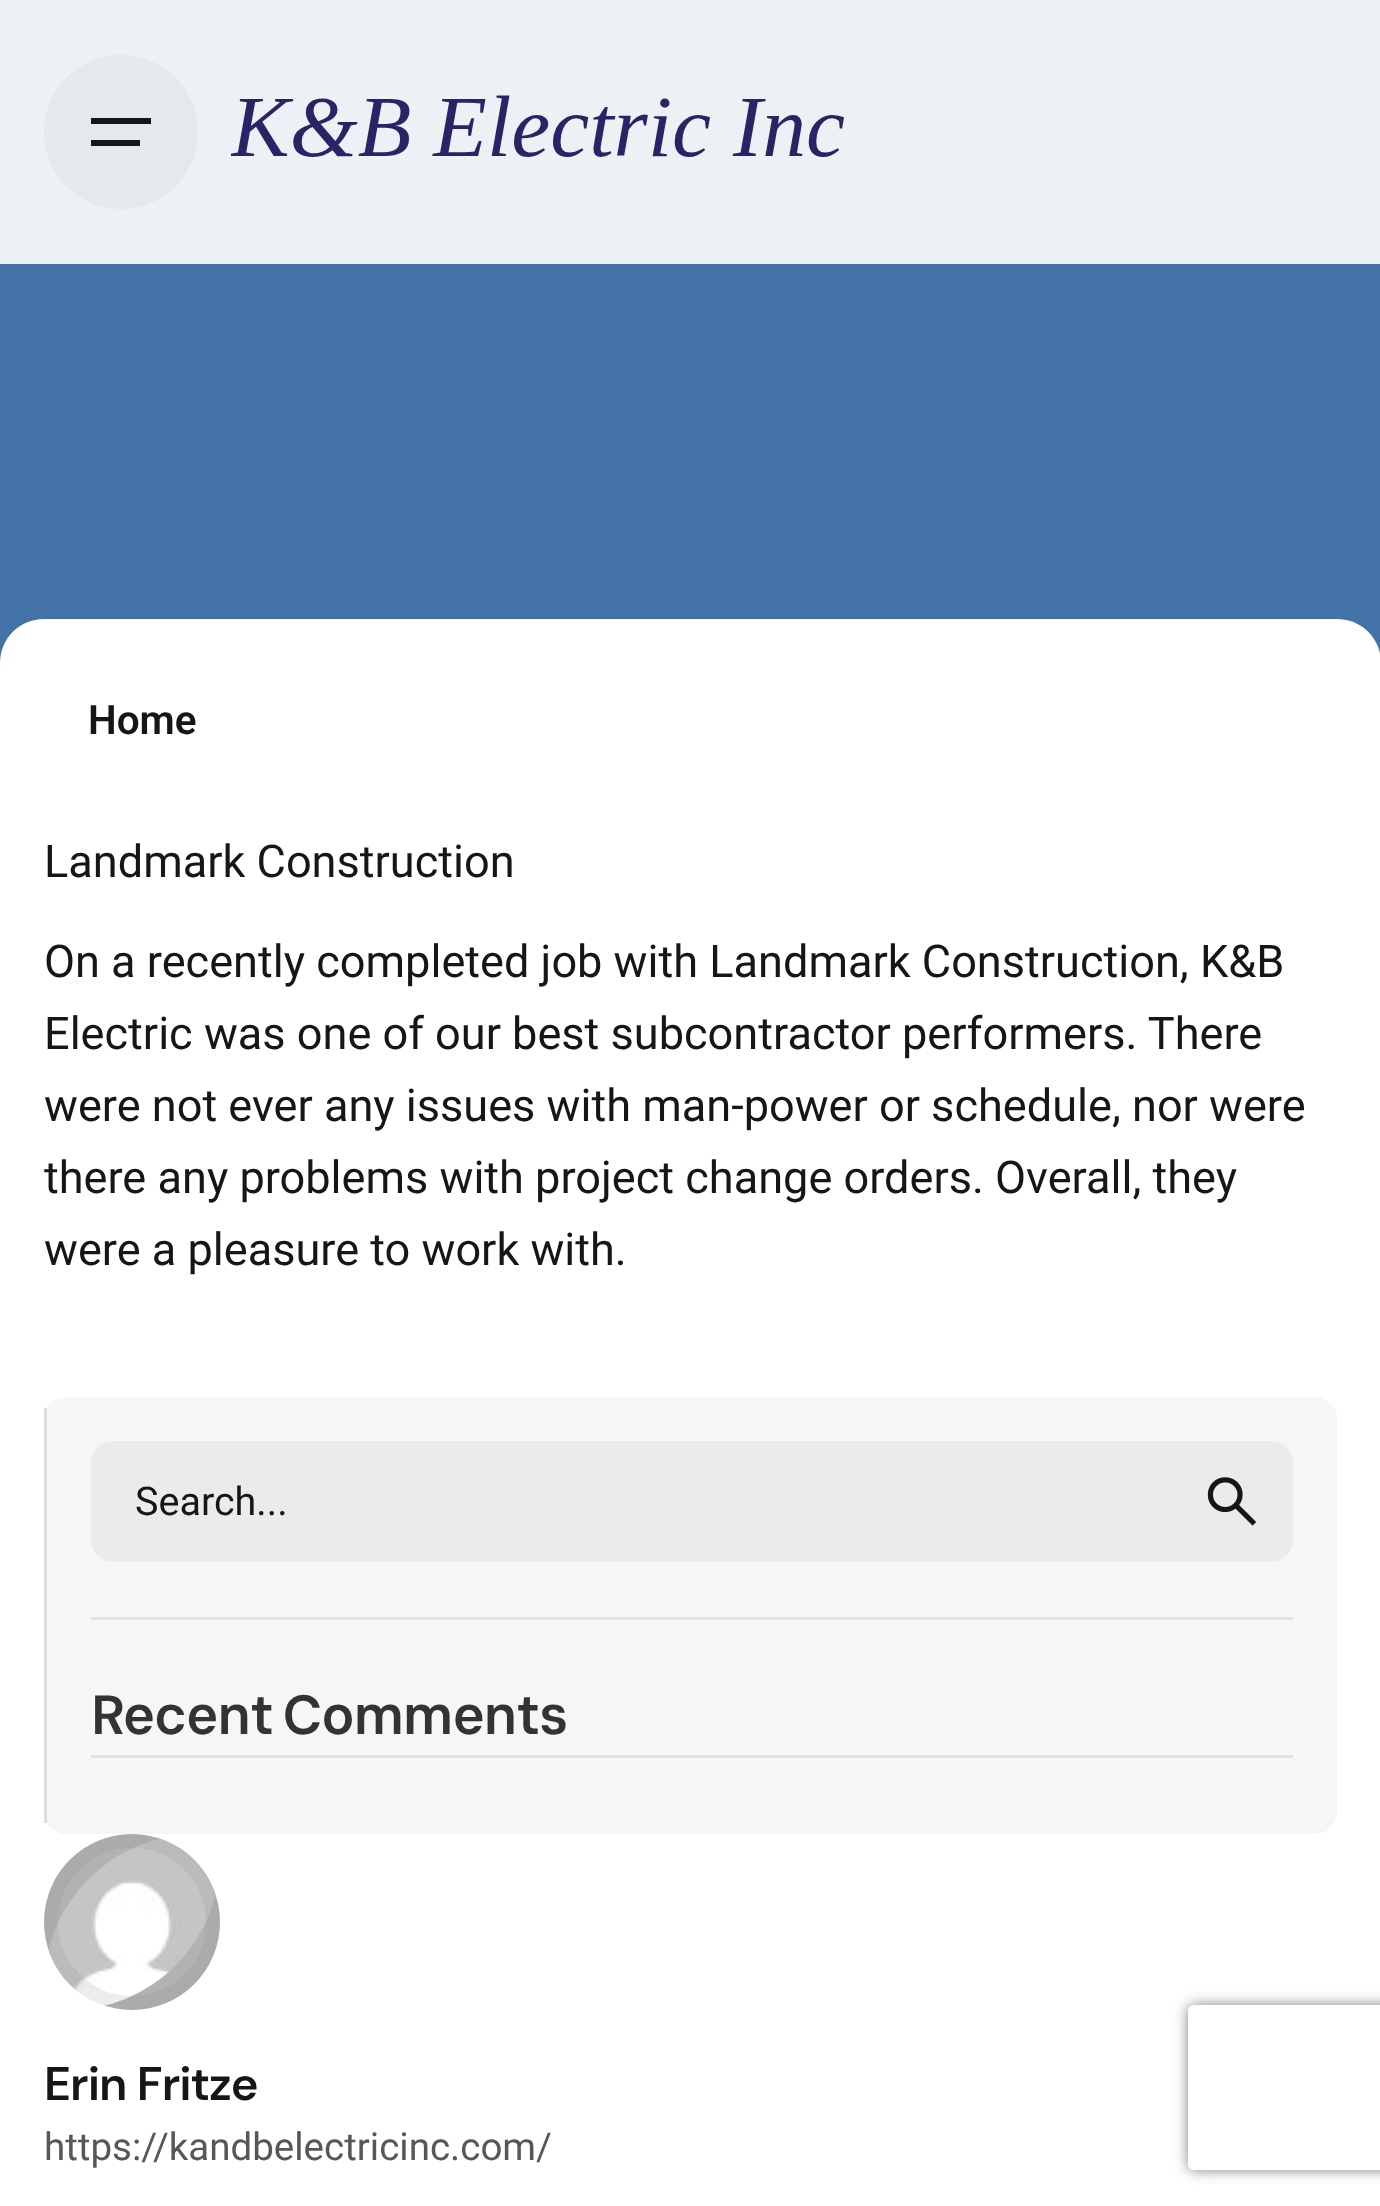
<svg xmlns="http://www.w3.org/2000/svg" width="1380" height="2206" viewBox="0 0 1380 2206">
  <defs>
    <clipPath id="clip1"><rect x="44" y="1834" width="176" height="176" rx="88"/></clipPath>
    <clipPath id="clip2"><path d="M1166 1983H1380V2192H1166ZM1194 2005H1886C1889.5 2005 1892 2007.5 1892 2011V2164C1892 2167.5 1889.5 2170 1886 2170H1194C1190.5 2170 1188 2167.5 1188 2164V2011C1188 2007.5 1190.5 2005 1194 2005Z" clip-rule="evenodd"/></clipPath>
  </defs>
  <rect width="100%" height="100%" fill="rgb(255,255,255)"/>
  <rect x="0" y="0" width="1380" height="264" fill="rgb(236,241,246)"/>
  <circle cx="121" cy="132" r="77" fill="rgb(228,233,237)"/>
  <rect x="91" y="118" width="60" height="6" fill="rgb(22,21,24)"/>
  <rect x="91" y="140" width="49" height="6" fill="rgb(22,21,24)"/>
  <image x="231" y="95" width="613" height="62" href="pic1.png"/>
  <rect x="0" y="264" width="1380" height="399" fill="rgb(67,115,166)"/>
  <path d="M44 619H1337C1361.5 619 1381 638.5 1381 663H0C0 638.5 19.5 619 44 619Z" fill="rgb(255,255,255)"/>
  <text x="88" y="734" font-family="Roboto" font-size="40.5" font-weight="600" fill="rgb(22,21,24)">Home</text>
  <g font-family="Roboto" font-size="45.1" fill="rgb(22,21,24)">
    <text x="44" y="877">Landmark Construction</text>
    <text>
      <tspan x="44" y="977">On a recently completed job with Landmark Construction, K&amp;B</tspan>
      <tspan x="44" y="1049">Electric was one of our best subcontractor performers. There</tspan>
      <tspan x="44" y="1121">were not ever any issues with man-power or schedule, nor were</tspan>
      <tspan x="44" y="1193">there any problems with project change orders. Overall, they</tspan>
      <tspan x="44" y="1265">were a pleasure to work with.</tspan>
    </text>
  </g>
  <rect x="44" y="1397" width="1293" height="437" rx="22" fill="rgb(246,246,246)"/>
  <rect x="44" y="1408" width="3" height="415" fill="rgb(221,221,221)"/>
  <rect x="91" y="1617" width="1202" height="3" fill="rgb(228,228,229)"/>
  <rect x="91" y="1441" width="1202" height="121" rx="22" fill="rgb(235,235,235)"/>
  <text x="135" y="1515" font-family="Roboto" font-size="39.5" fill="rgb(22,21,24)">Search...</text>
  <image x="1207" y="1477" width="50" height="49" href="pic2.png"/>
  <rect x="91" y="1755" width="1202" height="3" fill="rgb(227,227,227)"/>
  <text x="91" y="1734" word-spacing="-3" font-family="'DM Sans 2'" font-size="55" font-weight="600" letter-spacing="-1.1" fill="rgb(51,51,51)">Recent Comments</text>
  <circle cx="132" cy="1922" r="88" fill="rgb(207,207,208)"/>
  <g clip-path="url(#clip1)">
    <circle cx="132" cy="1922" r="88" fill="rgba(136,136,137,0.4)"/>
  </g>
  <image x="48" y="1839" width="167" height="167" href="pic3.png"/>
  <circle cx="132" cy="1922" r="81" fill="none" stroke="rgba(136,136,137,0.15)" stroke-width="14"/>
  <text x="44" y="2100" font-family="DM Sans" font-size="47" font-weight="600" letter-spacing="-1" fill="rgb(22,21,24)">Erin Fritze</text>
  <text x="44" y="2160" font-family="Roboto" font-size="38.5" fill="rgb(87,86,88)">https://kandbelectricinc.com/</text>
  <g clip-path="url(#clip2)">
    <rect x="1188" y="2005" width="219" height="165" rx="6" fill="rgb(128,128,128)" filter="blur(7px)"/>
  </g>
</svg>
